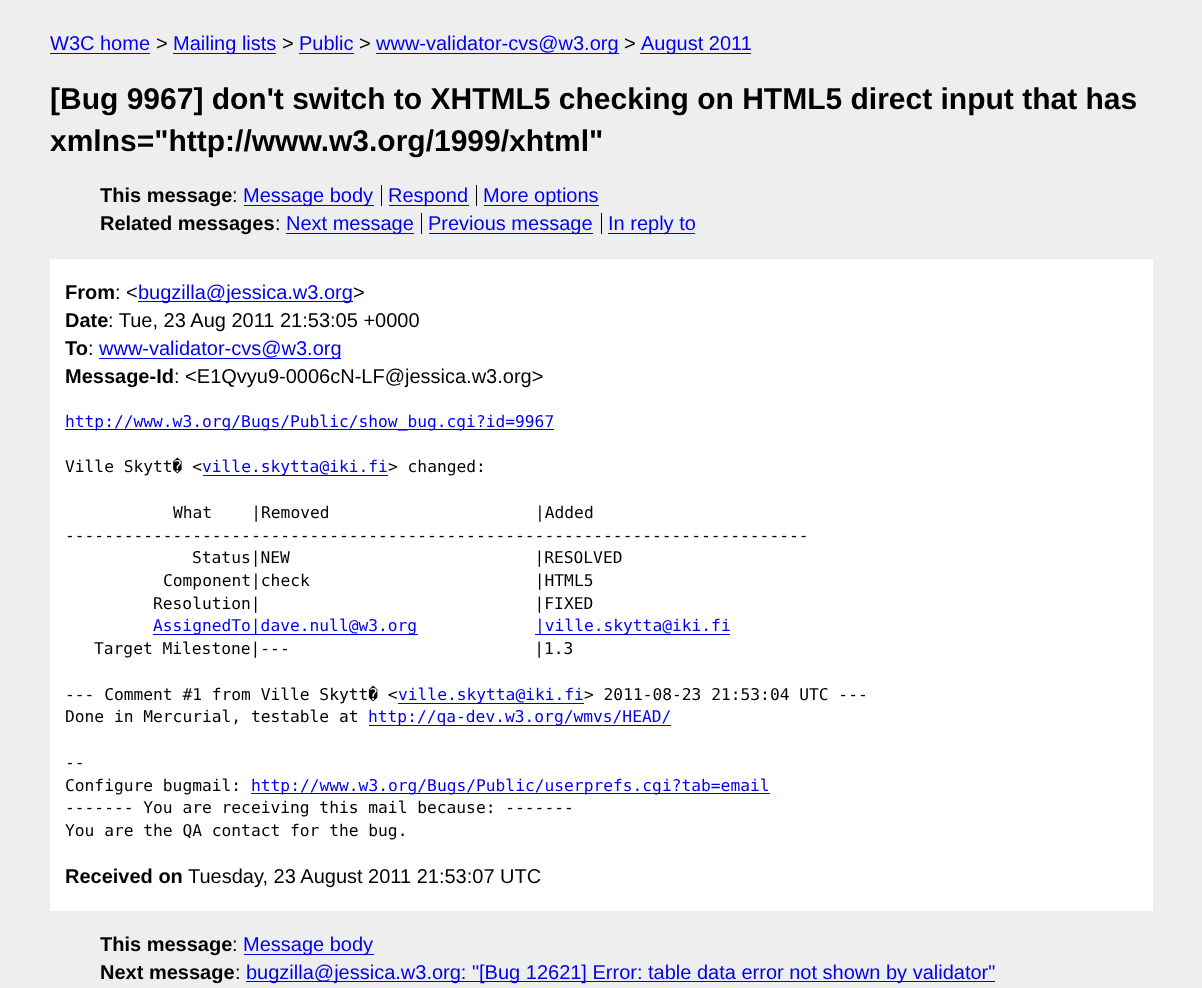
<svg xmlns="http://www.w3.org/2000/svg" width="1202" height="988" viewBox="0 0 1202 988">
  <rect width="100%" height="100%" fill="rgb(238,238,238)"/>
  <text x="50" y="50" font-family="Liberation Sans" font-size="20" fill="rgb(0,0,238)">W3C home</text>
  <rect x="50" y="53" width="100" height="1" fill="rgb(0,0,238)"/>
  <text x="156" y="50" font-family="Liberation Sans" font-size="20" fill="rgb(0,0,0)">&gt;</text>
  <rect x="173" y="53" width="103" height="1" fill="rgb(0,0,238)"/>
  <text x="173" y="50" font-family="Liberation Sans" font-size="20" fill="rgb(0,0,238)">Mailing lists</text>
  <text x="282" y="50" font-family="Liberation Sans" font-size="20" fill="rgb(0,0,0)">&gt;</text>
  <text x="299" y="50" font-family="Liberation Sans" font-size="20" fill="rgb(0,0,238)">Public</text>
  <rect x="299" y="53" width="55" height="1" fill="rgb(0,0,238)"/>
  <text x="359" y="50" font-family="Liberation Sans" font-size="20" fill="rgb(0,0,0)">&gt;</text>
  <rect x="376" y="53" width="243" height="1" fill="rgb(0,0,238)"/>
  <text x="376" y="50" font-family="Liberation Sans" font-size="20" fill="rgb(0,0,238)">www-validator-cvs@w3.org</text>
  <text x="624" y="50" font-family="Liberation Sans" font-size="20" fill="rgb(0,0,0)">&gt;</text>
  <rect x="640" y="53" width="111" height="1" fill="rgb(0,0,238)"/>
  <text x="641" y="50" font-family="Liberation Sans" font-size="20" fill="rgb(0,0,238)">August 2011</text>
  <g font-family="Liberation Sans" font-size="30" font-weight="bold" fill="rgb(0,0,0)">
    <text>
      <tspan x="50" y="109">[Bug 9967] don't switch to XHTML5 checking on HTML5 direct input that has</tspan>
      <tspan x="50" y="151">xmlns="http://www.w3.org/1999/xhtml"</tspan>
    </text>
  </g>
  <text x="100" y="202" font-family="Liberation Sans" font-size="20" font-weight="bold" fill="rgb(0,0,0)">This message</text>
  <text x="232" y="202" font-family="Liberation Sans" font-size="20" fill="rgb(0,0,0)">:</text>
  <rect x="244" y="205" width="130" height="1" fill="rgb(0,0,238)"/>
  <text x="243" y="202" font-family="Liberation Sans" font-size="20" fill="rgb(0,0,238)">Message body</text>
  <rect x="381" y="185" width="1" height="21" fill="rgb(0,0,0)"/>
  <rect x="389" y="205" width="80" height="1" fill="rgb(0,0,238)"/>
  <text x="388" y="202" font-family="Liberation Sans" font-size="20" fill="rgb(0,0,238)">Respond</text>
  <rect x="484" y="205" width="115" height="1" fill="rgb(0,0,238)"/>
  <text x="483" y="202" font-family="Liberation Sans" font-size="20" fill="rgb(0,0,238)">More options</text>
  <rect x="476" y="185" width="1" height="21" fill="rgb(0,0,0)"/>
  <text x="100" y="230" font-family="Liberation Sans" font-size="20" font-weight="bold" fill="rgb(0,0,0)">Related messages</text>
  <text x="275" y="230" font-family="Liberation Sans" font-size="20" fill="rgb(0,0,0)">:</text>
  <rect x="286" y="233" width="128" height="1" fill="rgb(0,0,238)"/>
  <text x="286" y="230" font-family="Liberation Sans" font-size="20" fill="rgb(0,0,238)">Next message</text>
  <rect x="429" y="233" width="164" height="1" fill="rgb(0,0,238)"/>
  <text x="428" y="230" font-family="Liberation Sans" font-size="20" fill="rgb(0,0,238)">Previous message</text>
  <rect x="421" y="213" width="1" height="21" fill="rgb(0,0,0)"/>
  <rect x="608" y="233" width="87" height="1" fill="rgb(0,0,238)"/>
  <text x="608" y="230" font-family="Liberation Sans" font-size="20" fill="rgb(0,0,238)">In reply to</text>
  <rect x="601" y="213" width="1" height="21" fill="rgb(0,0,0)"/>
  <rect x="50" y="259" width="1103" height="652" fill="rgb(255,255,255)"/>
  <text x="65" y="299" font-family="Liberation Sans" font-size="20" font-weight="bold" fill="rgb(0,0,0)">From</text>
  <text x="115" y="299" font-family="Liberation Sans" font-size="20" fill="rgb(0,0,0)">: &lt;</text>
  <rect x="138" y="301" width="215" height="1" fill="rgb(0,0,238)"/>
  <text x="138" y="299" font-family="Liberation Sans" font-size="20" fill="rgb(0,0,238)">bugzilla@jessica.w3.org</text>
  <text x="353" y="299" font-family="Liberation Sans" font-size="20" fill="rgb(0,0,0)">&gt;</text>
  <text x="65" y="327" font-family="Liberation Sans" font-size="20" font-weight="bold" fill="rgb(0,0,0)">Date</text>
  <text x="108" y="327" font-family="Liberation Sans" font-size="20" fill="rgb(0,0,0)">: Tue, 23 Aug 2011 21:53:05 +0000</text>
  <text x="65" y="355" font-family="Liberation Sans" font-size="20" font-weight="bold" fill="rgb(0,0,0)">To</text>
  <text x="88" y="355" font-family="Liberation Sans" font-size="20" fill="rgb(0,0,0)">:</text>
  <rect x="99" y="358" width="242" height="1" fill="rgb(0,0,238)"/>
  <text x="99" y="355" font-family="Liberation Sans" font-size="20" fill="rgb(0,0,238)">www-validator-cvs@w3.org</text>
  <text x="65" y="383" font-family="Liberation Sans" font-size="20" font-weight="bold" fill="rgb(0,0,0)">Message-Id</text>
  <text x="174" y="383" font-family="Liberation Sans" font-size="20" fill="rgb(0,0,0)">: &lt;E1Qvyu9-0006cN-LF@jessica.w3.org&gt;</text>
  <rect x="65" y="429" width="489" height="1" fill="rgb(0,0,238)"/>
  <text x="65" y="427" font-family="DejaVu Sans Mono" font-size="16.25" fill="rgb(0,0,238)">http://www.w3.org/Bugs/Public/show_bug.cgi?id=9967</text>
  <text x="65" y="472" font-family="DejaVu Sans Mono" font-size="16.25" fill="rgb(0,0,0)">Ville Skytt� &lt;</text>
  <rect x="203" y="475" width="185" height="1" fill="rgb(0,0,238)"/>
  <text x="202" y="472" font-family="DejaVu Sans Mono" font-size="16.25" fill="rgb(0,0,238)">ville.skytta@iki.fi</text>
  <g font-family="DejaVu Sans Mono" font-size="16.25" fill="rgb(0,0,0)">
    <text x="388" y="472">&gt; changed:</text>
    <text x="173" y="518" xml:space="preserve">What    |Removed                     |Added</text>
    <text x="65" y="541">----------------------------------------------------------------------------</text>
    <text x="192" y="563" xml:space="preserve">Status|NEW                         |RESOLVED</text>
    <text x="163" y="586" xml:space="preserve">Component|check                       |HTML5</text>
    <text x="153" y="609" xml:space="preserve">Resolution|                            |FIXED</text>
  </g>
  <rect x="153" y="634" width="265" height="1" fill="rgb(0,0,238)"/>
  <text x="153" y="631" font-family="DejaVu Sans Mono" font-size="16.25" fill="rgb(0,0,238)">AssignedTo|dave.null@w3.org</text>
  <rect x="535" y="634" width="195" height="1" fill="rgb(0,0,238)"/>
  <text x="535" y="631" font-family="DejaVu Sans Mono" font-size="16.25" fill="rgb(0,0,238)">|ville.skytta@iki.fi</text>
  <g font-family="DejaVu Sans Mono" font-size="16.25" fill="rgb(0,0,0)">
    <text x="94" y="654" xml:space="preserve">Target Milestone|---                         |1.3</text>
    <text x="65" y="700">--- Comment #1 from Ville Skytt� &lt;</text>
  </g>
  <rect x="398" y="703" width="186" height="1" fill="rgb(0,0,238)"/>
  <text x="398" y="700" font-family="DejaVu Sans Mono" font-size="16.25" fill="rgb(0,0,238)">ville.skytta@iki.fi</text>
  <g font-family="DejaVu Sans Mono" font-size="16.25" fill="rgb(0,0,0)">
    <text x="584" y="700">&gt; 2011-08-23 21:53:04 UTC ---</text>
    <text x="65" y="722">Done in Mercurial, testable at</text>
  </g>
  <rect x="369" y="725" width="302" height="1" fill="rgb(0,0,238)"/>
  <text x="368" y="722" font-family="DejaVu Sans Mono" font-size="16.25" fill="rgb(0,0,238)">http://qa-dev.w3.org/wmvs/HEAD/</text>
  <g font-family="DejaVu Sans Mono" font-size="16.25" fill="rgb(0,0,0)">
    <text>
      <tspan x="65" y="768">--</tspan>
      <tspan x="65" y="791">Configure bugmail:</tspan>
    </text>
  </g>
  <rect x="251" y="793" width="519" height="1" fill="rgb(0,0,238)"/>
  <text x="251" y="791" font-family="DejaVu Sans Mono" font-size="16.25" fill="rgb(0,0,238)">http://www.w3.org/Bugs/Public/userprefs.cgi?tab=email</text>
  <g font-family="DejaVu Sans Mono" font-size="16.25" fill="rgb(0,0,0)">
    <text>
      <tspan x="65" y="813">------- You are receiving this mail because: -------</tspan>
      <tspan x="65" y="836">You are the QA contact for the bug.</tspan>
    </text>
  </g>
  <text x="65" y="883" font-family="Liberation Sans" font-size="20" font-weight="bold" fill="rgb(0,0,0)">Received on</text>
  <text x="188" y="883" font-family="Liberation Sans" font-size="20" fill="rgb(0,0,0)">Tuesday, 23 August 2011 21:53:07 UTC</text>
  <text x="100" y="951" font-family="Liberation Sans" font-size="20" font-weight="bold" fill="rgb(0,0,0)">This message</text>
  <text x="232" y="951" font-family="Liberation Sans" font-size="20" fill="rgb(0,0,0)">:</text>
  <rect x="244" y="954" width="130" height="1" fill="rgb(0,0,238)"/>
  <text x="243" y="951" font-family="Liberation Sans" font-size="20" fill="rgb(0,0,238)">Message body</text>
  <text x="100" y="979" font-family="Liberation Sans" font-size="20" font-weight="bold" fill="rgb(0,0,0)">Next message</text>
  <text x="235" y="979" font-family="Liberation Sans" font-size="20" fill="rgb(0,0,0)">:</text>
  <rect x="246" y="981" width="749" height="1" fill="rgb(0,0,238)"/>
  <text x="246" y="979" font-family="Liberation Sans" font-size="20" fill="rgb(0,0,238)">bugzilla@jessica.w3.org: "[Bug 12621] Error: table data error not shown by validator"</text>
</svg>
